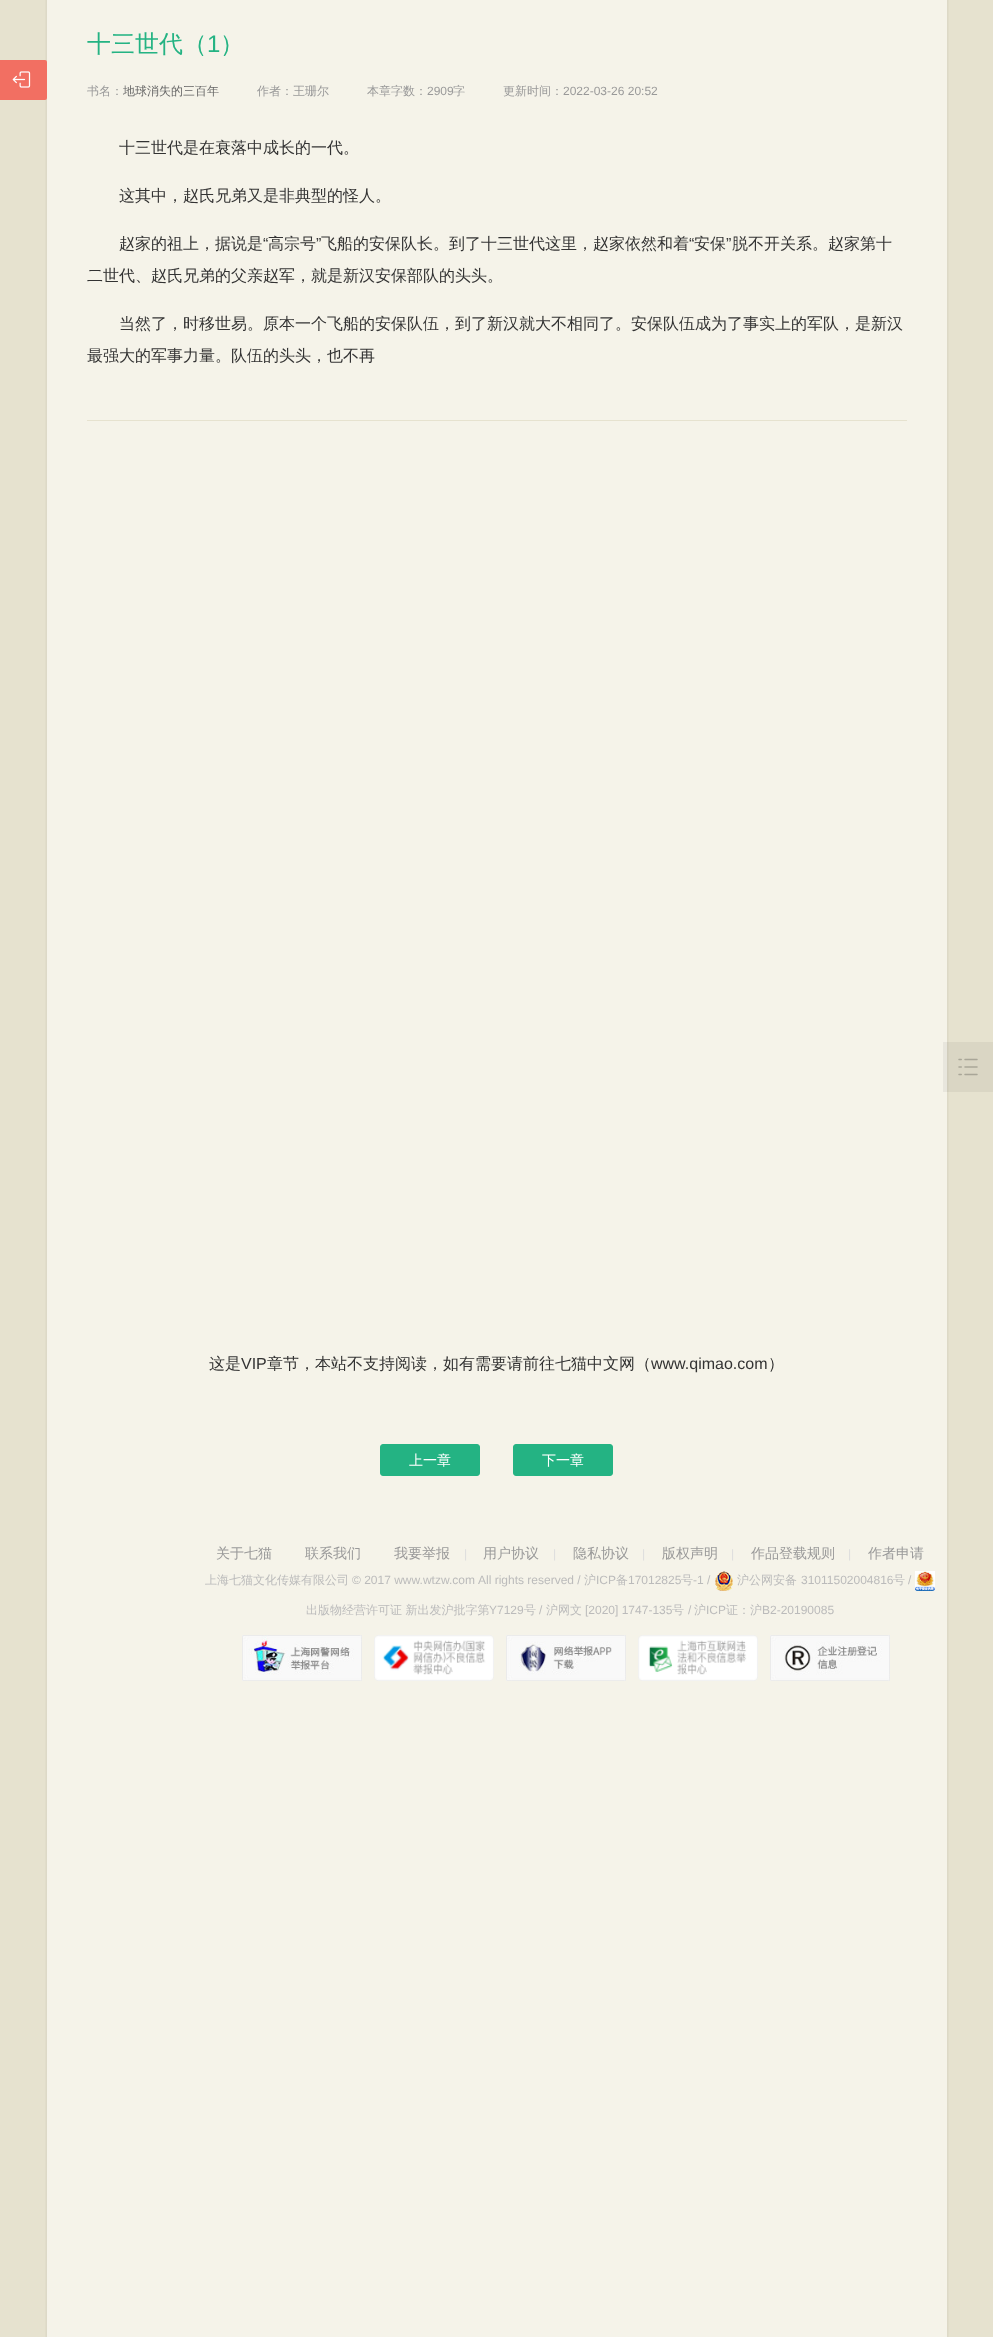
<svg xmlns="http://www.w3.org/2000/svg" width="993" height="2337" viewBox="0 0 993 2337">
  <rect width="100%" height="100%" fill="rgb(230,226,207)"/>
  <image x="45" y="1706" width="904" height="631" href="pic1.png"/>
  <image x="45" y="0" width="904" height="1706" href="pic2.png"/>
  <rect x="-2" y="60" width="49" height="40" rx="2" fill="rgb(242,111,98)"/>
  <image x="12" y="71" width="19" height="17" href="pic3.png"/>
  <text x="87" y="52" font-family="WenQuanYi Zen Hei" font-size="24" font-weight="500" fill="rgb(36,179,131)">十三世代（</text>
  <text x="207" y="52" font-family="Liberation Sans" font-size="24" fill="rgb(36,179,131)">1</text>
  <text x="220" y="52" font-family="WenQuanYi Zen Hei" font-size="24" font-weight="500" fill="rgb(36,179,131)">）</text>
  <text x="87" y="95" font-family="WenQuanYi Zen Hei" font-size="12" font-weight="500" fill="rgb(153,153,153)">书名：</text>
  <text x="123" y="95" font-family="WenQuanYi Zen Hei" font-size="12" font-weight="500" fill="rgb(102,102,102)">地球消失的三百年</text>
  <g font-family="WenQuanYi Zen Hei" font-size="12" font-weight="500" fill="rgb(153,153,153)">
    <text x="257" y="95">作者：王珊尔</text>
    <text x="367" y="95">本章字数：</text>
  </g>
  <text x="427" y="95" font-family="Liberation Sans" font-size="12" fill="rgb(153,153,153)">2909</text>
  <g font-family="WenQuanYi Zen Hei" font-size="12" font-weight="500" fill="rgb(153,153,153)">
    <text x="453" y="95">字</text>
    <text x="503" y="95">更新时间：</text>
  </g>
  <text x="563" y="95" font-family="Liberation Sans" font-size="12" fill="rgb(153,153,153)">2022-03-26 20:52</text>
  <g font-family="WenQuanYi Zen Hei" font-size="16" font-weight="500" fill="rgb(51,51,51)">
    <text x="119" y="153">十三世代是在衰落中成长的一代。</text>
    <text x="119" y="201">这其中，赵氏兄弟又是非典型的怪人。</text>
    <text x="119" y="249">赵家的祖上，据说是</text>
  </g>
  <text x="263" y="249" font-family="Liberation Sans" font-size="16" fill="rgb(51,51,51)">“</text>
  <text x="268" y="249" font-family="WenQuanYi Zen Hei" font-size="16" font-weight="500" fill="rgb(51,51,51)">高宗号</text>
  <text x="316" y="249" font-family="Liberation Sans" font-size="16" fill="rgb(51,51,51)">”</text>
  <text x="321" y="249" font-family="WenQuanYi Zen Hei" font-size="16" font-weight="500" fill="rgb(51,51,51)">飞船的安保队长。到了十三世代这里，赵家依然和着</text>
  <text x="689" y="249" font-family="Liberation Sans" font-size="16" fill="rgb(51,51,51)">“</text>
  <text x="694" y="249" font-family="WenQuanYi Zen Hei" font-size="16" font-weight="500" fill="rgb(51,51,51)">安保</text>
  <text x="726" y="249" font-family="Liberation Sans" font-size="16" fill="rgb(51,51,51)">”</text>
  <g font-family="WenQuanYi Zen Hei" font-size="16" font-weight="500" fill="rgb(51,51,51)">
    <text x="732" y="249">脱不开关系。赵家第十</text>
    <text x="87" y="281">二世代、赵氏兄弟的父亲赵军，就是新汉安保部队的头头。</text>
    <text x="119" y="329">当然了，时移世易。原本一个飞船的安保队伍，到了新汉就大不相同了。安保队伍成为了事实上的军队，是新汉</text>
    <text x="87" y="361">最强大的军事力量。队伍的头头，也不再</text>
  </g>
  <rect x="87" y="420" width="820" height="1" fill="rgb(230,226,207)"/>
  <text x="209" y="1369" font-family="WenQuanYi Zen Hei" font-size="16" font-weight="500" fill="rgb(51,51,51)">这是</text>
  <text x="241" y="1369" font-family="Liberation Sans" font-size="16" fill="rgb(51,51,51)">VIP</text>
  <text x="267" y="1369" font-family="WenQuanYi Zen Hei" font-size="16" font-weight="500" fill="rgb(51,51,51)">章节，本站不支持阅读，如有需要请前往七猫中文网（</text>
  <text x="651" y="1369" font-family="Liberation Sans" font-size="16" fill="rgb(51,51,51)">www.qimao.com</text>
  <text x="768" y="1369" font-family="WenQuanYi Zen Hei" font-size="16" font-weight="500" fill="rgb(51,51,51)">）</text>
  <rect x="380.5" y="1444.5" width="99" height="31" rx="2.5" fill="rgb(36,179,131)" stroke="rgb(36,179,131)"/>
  <text x="409" y="1465" font-family="WenQuanYi Zen Hei" font-size="14" font-weight="500" fill="rgb(255,255,255)">上一章</text>
  <rect x="513.5" y="1444.5" width="99" height="31" rx="2.5" fill="rgb(36,179,131)" stroke="rgb(36,179,131)"/>
  <text x="542" y="1465" font-family="WenQuanYi Zen Hei" font-size="14" font-weight="500" fill="rgb(255,255,255)">下一章</text>
  <rect x="943" y="1042" width="50" height="50" fill="rgba(0,0,0,0.05)"/>
  <image x="958" y="1058" width="20" height="18" href="pic4.png"/>
  <g font-family="WenQuanYi Zen Hei" font-size="14" font-weight="500" fill="rgb(153,153,153)">
    <text x="216" y="1558">关于七猫</text>
    <text x="305" y="1558">联系我们</text>
    <text x="394" y="1558">我要举报</text>
  </g>
  <text x="464" y="1558" font-family="Liberation Sans" font-size="12" fill="rgb(221,221,221)">|</text>
  <text x="483" y="1558" font-family="WenQuanYi Zen Hei" font-size="14" font-weight="500" fill="rgb(153,153,153)">用户协议</text>
  <text x="553" y="1558" font-family="Liberation Sans" font-size="12" fill="rgb(221,221,221)">|</text>
  <text x="573" y="1558" font-family="WenQuanYi Zen Hei" font-size="14" font-weight="500" fill="rgb(153,153,153)">隐私协议</text>
  <text x="642" y="1558" font-family="Liberation Sans" font-size="12" fill="rgb(221,221,221)">|</text>
  <text x="662" y="1558" font-family="WenQuanYi Zen Hei" font-size="14" font-weight="500" fill="rgb(153,153,153)">版权声明</text>
  <text x="731" y="1558" font-family="Liberation Sans" font-size="12" fill="rgb(221,221,221)">|</text>
  <text x="751" y="1558" font-family="WenQuanYi Zen Hei" font-size="14" font-weight="500" fill="rgb(153,153,153)">作品登载规则</text>
  <text x="848" y="1558" font-family="Liberation Sans" font-size="12" fill="rgb(221,221,221)">|</text>
  <text x="868" y="1558" font-family="WenQuanYi Zen Hei" font-size="14" font-weight="500" fill="rgb(153,153,153)">作者申请</text>
  <text x="205" y="1584" font-family="WenQuanYi Zen Hei" font-size="12" font-weight="500" fill="rgb(187,187,187)">上海七猫文化传媒有限公司</text>
  <g font-family="Liberation Sans" font-size="12" fill="rgb(187,187,187)">
    <text x="352" y="1584">© 2017 www.wtzw.com</text>
    <text x="478" y="1584">All rights reserved /</text>
  </g>
  <text x="584" y="1584" font-family="WenQuanYi Zen Hei" font-size="12" font-weight="500" fill="rgb(187,187,187)">沪</text>
  <text x="596" y="1584" font-family="Liberation Sans" font-size="12" fill="rgb(187,187,187)">ICP</text>
  <text x="616" y="1584" font-family="WenQuanYi Zen Hei" font-size="12" font-weight="500" fill="rgb(187,187,187)">备</text>
  <text x="628" y="1584" font-family="Liberation Sans" font-size="12" fill="rgb(187,187,187)">17012825</text>
  <text x="681" y="1584" font-family="WenQuanYi Zen Hei" font-size="12" font-weight="500" fill="rgb(187,187,187)">号</text>
  <text x="693" y="1584" font-family="Liberation Sans" font-size="12" fill="rgb(187,187,187)">-1 /</text>
  <image x="715" y="1571" width="18" height="20" href="pic5.png"/>
  <text x="737" y="1584" font-family="WenQuanYi Zen Hei" font-size="12" font-weight="500" fill="rgb(187,187,187)">沪公网安备</text>
  <text x="801" y="1584" font-family="Liberation Sans" font-size="12" fill="rgb(187,187,187)">31011502004816</text>
  <text x="893" y="1584" font-family="WenQuanYi Zen Hei" font-size="12" font-weight="500" fill="rgb(187,187,187)">号</text>
  <text x="908" y="1584" font-family="Liberation Sans" font-size="12" fill="rgb(187,187,187)">/</text>
  <image x="915" y="1571" width="20" height="20" href="pic6.png"/>
  <text x="306" y="1614" font-family="WenQuanYi Zen Hei" font-size="12" font-weight="500" fill="rgb(187,187,187)">出版物经营许可证 新出发沪批字第</text>
  <text x="489" y="1614" font-family="Liberation Sans" font-size="12" fill="rgb(187,187,187)">Y7129</text>
  <text x="524" y="1614" font-family="WenQuanYi Zen Hei" font-size="12" font-weight="500" fill="rgb(187,187,187)">号</text>
  <text x="539" y="1614" font-family="Liberation Sans" font-size="12" fill="rgb(187,187,187)">/</text>
  <text x="546" y="1614" font-family="WenQuanYi Zen Hei" font-size="12" font-weight="500" fill="rgb(187,187,187)">沪网文</text>
  <text x="585" y="1614" font-family="Liberation Sans" font-size="12" fill="rgb(187,187,187)">[2020] 1747-135</text>
  <text x="672" y="1614" font-family="WenQuanYi Zen Hei" font-size="12" font-weight="500" fill="rgb(187,187,187)">号</text>
  <text x="688" y="1614" font-family="Liberation Sans" font-size="12" fill="rgb(187,187,187)">/</text>
  <text x="694" y="1614" font-family="WenQuanYi Zen Hei" font-size="12" font-weight="500" fill="rgb(187,187,187)">沪</text>
  <text x="706" y="1614" font-family="Liberation Sans" font-size="12" fill="rgb(187,187,187)">ICP</text>
  <text x="726" y="1614" font-family="WenQuanYi Zen Hei" font-size="12" font-weight="500" fill="rgb(187,187,187)">证：沪</text>
  <text x="762" y="1614" font-family="Liberation Sans" font-size="12" fill="rgb(187,187,187)">B2-20190085</text>
  <image x="242" y="1635" width="120" height="46" href="pic7.png"/>
  <image x="374" y="1635" width="120" height="46" href="pic8.png"/>
  <image x="506" y="1635" width="120" height="46" href="pic9.png"/>
  <image x="638" y="1635" width="120" height="46" href="pic10.png"/>
  <image x="770" y="1635" width="120" height="46" href="pic11.png"/>
</svg>
